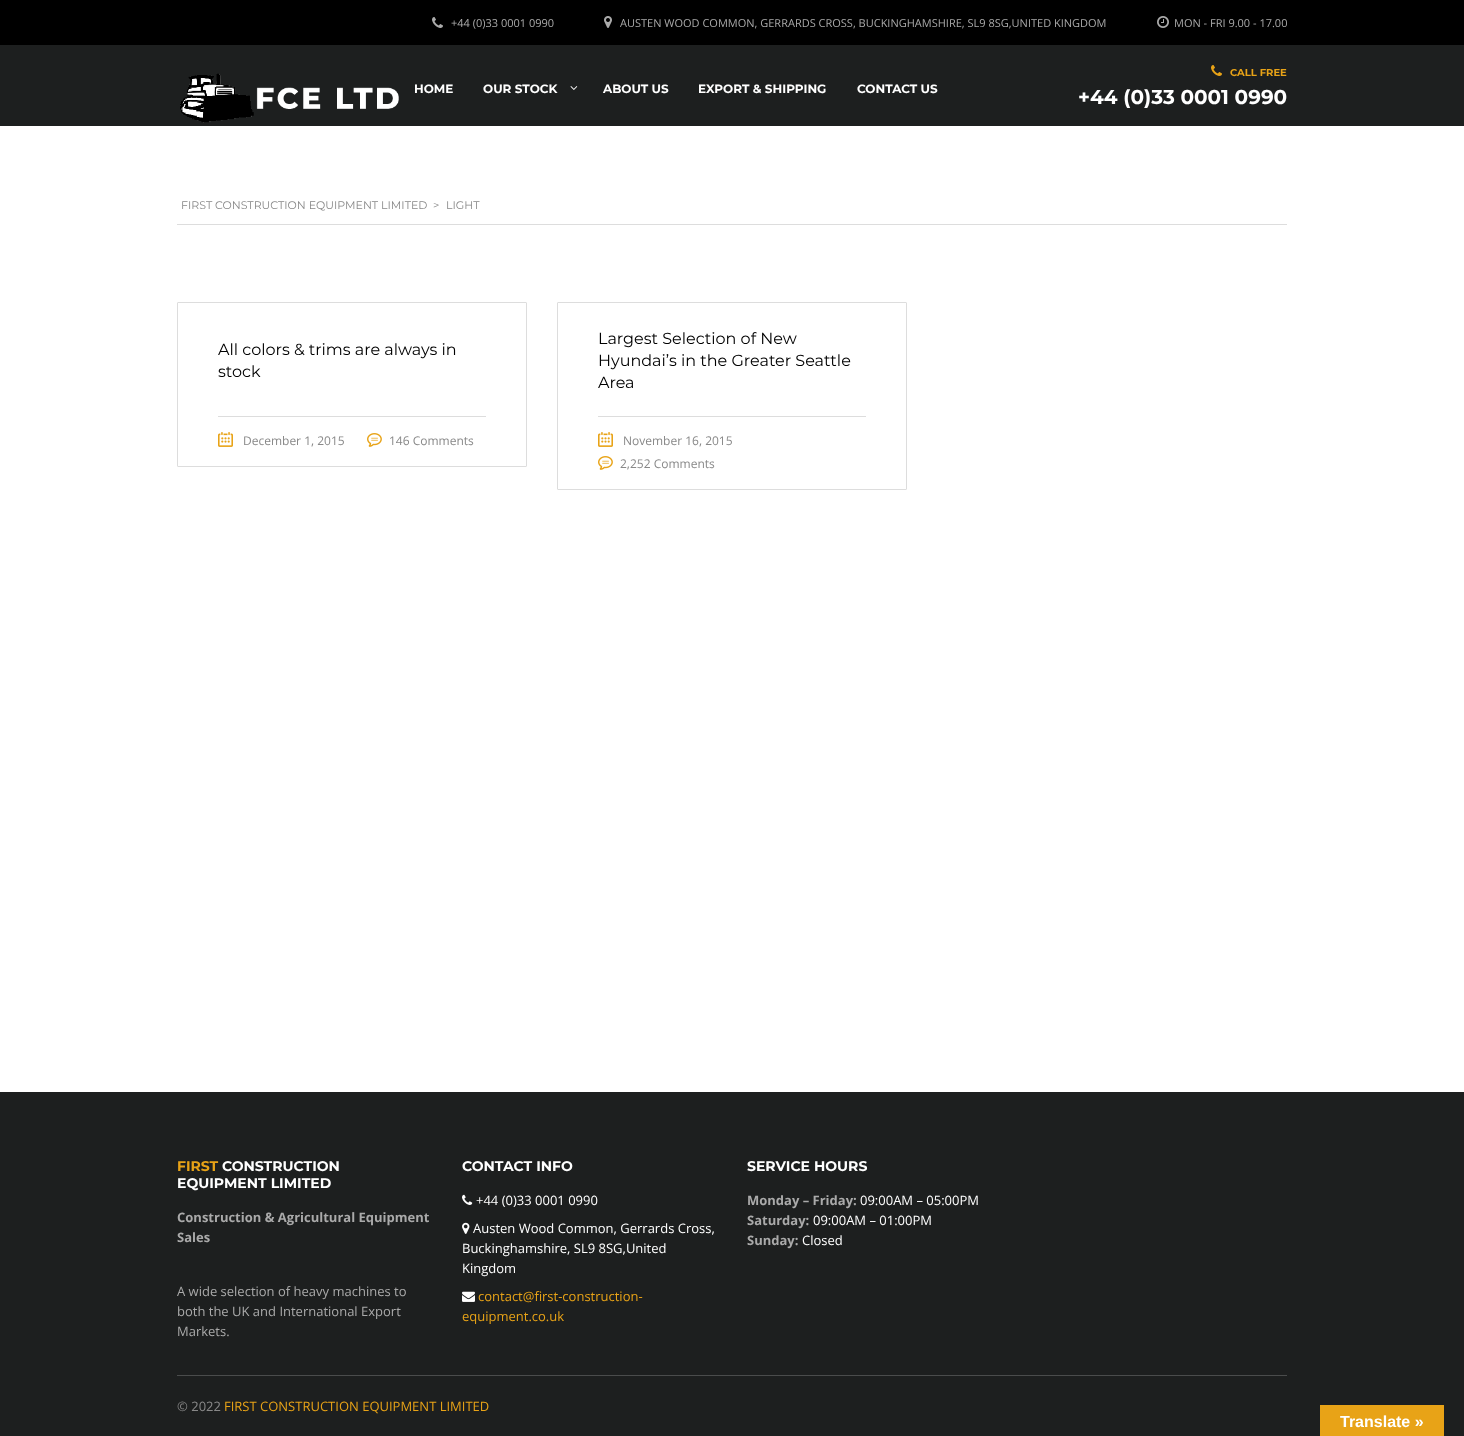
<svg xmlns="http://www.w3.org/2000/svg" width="1464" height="1436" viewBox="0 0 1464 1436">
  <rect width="100%" height="100%" fill="rgb(255,255,255)"/>
  <rect x="0" y="0" width="1464" height="45" fill="rgb(0,0,0)"/>
  <image x="432" y="17" width="11" height="11" href="pic1.png"/>
  <text x="451" y="27" font-family="Open Sans" font-size="11" fill="rgb(170,170,170)">+44 (0)33 0001 0990</text>
  <image x="604" y="16" width="8" height="12" href="pic2.png"/>
  <text x="620" y="27" font-family="Open Sans" font-size="11" fill="rgb(170,170,170)">AUSTEN WOOD COMMON, GERRARDS CROSS, BUCKINGHAMSHIRE, SL9 8SG,UNITED KINGDOM</text>
  <image x="1157" y="16" width="12" height="12" href="pic3.png"/>
  <text x="1174" y="27" font-family="Open Sans" font-size="11" fill="rgb(170,170,170)">MON - FRI 9.00 - 17.00</text>
  <rect x="0" y="45" width="1464" height="81" fill="rgb(29,31,31)"/>
  <image x="180" y="73" width="219" height="50" href="pic4.png"/>
  <g font-family="Montserrat" font-size="12" font-weight="bold" fill="rgb(255,255,255)">
    <text x="414" y="93">HOME</text>
    <text x="483" y="93">OUR STOCK</text>
  </g>
  <image x="570" y="86" width="8" height="4" href="pic5.png"/>
  <g font-family="Montserrat" font-size="12" font-weight="bold" fill="rgb(255,255,255)">
    <text x="603" y="93">ABOUT US</text>
    <text x="698" y="93">EXPORT &amp; SHIPPING</text>
    <text x="857" y="93">CONTACT US</text>
  </g>
  <image x="1211" y="65" width="11" height="11" href="pic6.png"/>
  <text x="1230" y="76" font-family="Montserrat" font-size="10" font-weight="bold" fill="rgb(232,163,23)">CALL FREE</text>
  <text x="1078" y="104" font-family="Montserrat" font-size="20" font-weight="bold" fill="rgb(255,255,255)">+44 (0)33 0001 0990</text>
  <rect x="177" y="224" width="1110" height="1" fill="rgb(221,221,221)"/>
  <g font-family="Montserrat" font-size="11" fill="rgb(136,136,136)">
    <text x="181" y="209">FIRST CONSTRUCTION EQUIPMENT LIMITED</text>
    <text x="433" y="209">&gt;</text>
    <text x="446" y="209">LIGHT</text>
  </g>
  <rect x="177.5" y="302.5" width="349" height="164" rx="0.5" fill="none" stroke="rgb(221,221,221)"/>
  <g font-family="Montserrat" font-size="16" fill="rgb(0,0,0)">
    <text>
      <tspan x="218" y="355">All colors &amp; trims are always in</tspan>
      <tspan x="218" y="377">stock</tspan>
    </text>
  </g>
  <rect x="218" y="416" width="268" height="1" fill="rgb(221,221,221)"/>
  <image x="218" y="432" width="15" height="15" href="pic7.png"/>
  <text x="243" y="445" font-family="Open Sans" font-size="12" fill="rgb(136,136,136)">December 1, 2015</text>
  <image x="367" y="433" width="15" height="14" href="pic8.png"/>
  <text x="389" y="445" font-family="Open Sans" font-size="12" fill="rgb(136,136,136)">146 Comments</text>
  <rect x="557.5" y="302.5" width="349" height="187" rx="0.5" fill="none" stroke="rgb(221,221,221)"/>
  <g font-family="Montserrat" font-size="16" fill="rgb(0,0,0)">
    <text>
      <tspan x="598" y="344">Largest Selection of New</tspan>
      <tspan x="598" y="366">Hyundai’s in the Greater Seattle</tspan>
      <tspan x="598" y="388">Area</tspan>
    </text>
  </g>
  <rect x="598" y="416" width="268" height="1" fill="rgb(221,221,221)"/>
  <image x="598" y="432" width="15" height="15" href="pic7.png"/>
  <text x="623" y="445" font-family="Open Sans" font-size="12" fill="rgb(136,136,136)">November 16, 2015</text>
  <image x="598" y="456" width="15" height="14" href="pic8.png"/>
  <text x="620" y="468" font-family="Open Sans" font-size="12" fill="rgb(136,136,136)">2,252 Comments</text>
  <rect x="0" y="1092" width="1464" height="344" fill="rgb(29,31,31)"/>
  <text x="177" y="1171" font-family="Montserrat" font-size="14" font-weight="bold" fill="rgb(232,163,23)">FIRST</text>
  <g font-family="Montserrat" font-size="14" font-weight="bold" fill="rgb(255,255,255)">
    <text x="222" y="1171">CONSTRUCTION</text>
    <text x="177" y="1188">EQUIPMENT LIMITED</text>
  </g>
  <g font-family="Open Sans" font-size="13" font-weight="bold" fill="rgb(170,170,170)">
    <text>
      <tspan x="177" y="1222">Construction &amp; Agricultural Equipment</tspan>
      <tspan x="177" y="1242">Sales</tspan>
    </text>
  </g>
  <g font-family="Open Sans" font-size="13" fill="rgb(170,170,170)">
    <text>
      <tspan x="177" y="1296">A wide selection of heavy machines to</tspan>
      <tspan x="177" y="1316">both the UK and International Export</tspan>
      <tspan x="177" y="1336">Markets.</tspan>
    </text>
  </g>
  <text x="462" y="1171" font-family="Montserrat" font-size="14" font-weight="bold" fill="rgb(255,255,255)">CONTACT INFO</text>
  <image x="462" y="1194" width="11" height="11" href="pic9.png"/>
  <text x="476" y="1205" font-family="Open Sans" font-size="13" fill="rgb(255,255,255)">+44 (0)33 0001 0990</text>
  <image x="462" y="1222" width="8" height="12" href="pic10.png"/>
  <g font-family="Open Sans" font-size="13" fill="rgb(255,255,255)">
    <text x="473" y="1233">Austen Wood Common, Gerrards Cross,</text>
    <text>
      <tspan x="462" y="1253">Buckinghamshire, SL9 8SG,United</tspan>
      <tspan x="462" y="1273">Kingdom</tspan>
    </text>
  </g>
  <image x="462" y="1291" width="13" height="11" href="pic11.png"/>
  <g font-family="Open Sans" font-size="13" fill="rgb(232,163,23)">
    <text x="478" y="1301">contact@first-construction-</text>
    <text x="462" y="1321">equipment.co.uk</text>
  </g>
  <text x="747" y="1171" font-family="Montserrat" font-size="14" font-weight="bold" fill="rgb(255,255,255)">SERVICE HOURS</text>
  <text x="747" y="1205" font-family="Open Sans" font-size="13" font-weight="bold" fill="rgb(170,170,170)">Monday – Friday:</text>
  <text x="860" y="1205" font-family="Open Sans" font-size="13" fill="rgb(255,255,255)">09:00AM – 05:00PM</text>
  <text x="747" y="1225" font-family="Open Sans" font-size="13" font-weight="bold" fill="rgb(170,170,170)">Saturday:</text>
  <text x="813" y="1225" font-family="Open Sans" font-size="13" fill="rgb(255,255,255)">09:00AM – 01:00PM</text>
  <text x="747" y="1245" font-family="Open Sans" font-size="13" font-weight="bold" fill="rgb(170,170,170)">Sunday:</text>
  <text x="802" y="1245" font-family="Open Sans" font-size="13" fill="rgb(255,255,255)">Closed</text>
  <rect x="177" y="1375" width="1110" height="1" fill="rgb(74,76,76)"/>
  <text x="177" y="1411" font-family="Open Sans" font-size="13" fill="rgb(136,136,136)">© 2022</text>
  <text x="224" y="1411" font-family="Open Sans" font-size="13" fill="rgb(232,163,23)">FIRST CONSTRUCTION EQUIPMENT LIMITED</text>
  <rect x="1320" y="1405" width="124" height="31" fill="rgb(232,163,23)"/>
  <text x="1340" y="1427" font-family="Liberation Sans" font-size="16" font-weight="bold" fill="rgb(255,255,255)">Translate »</text>
</svg>
